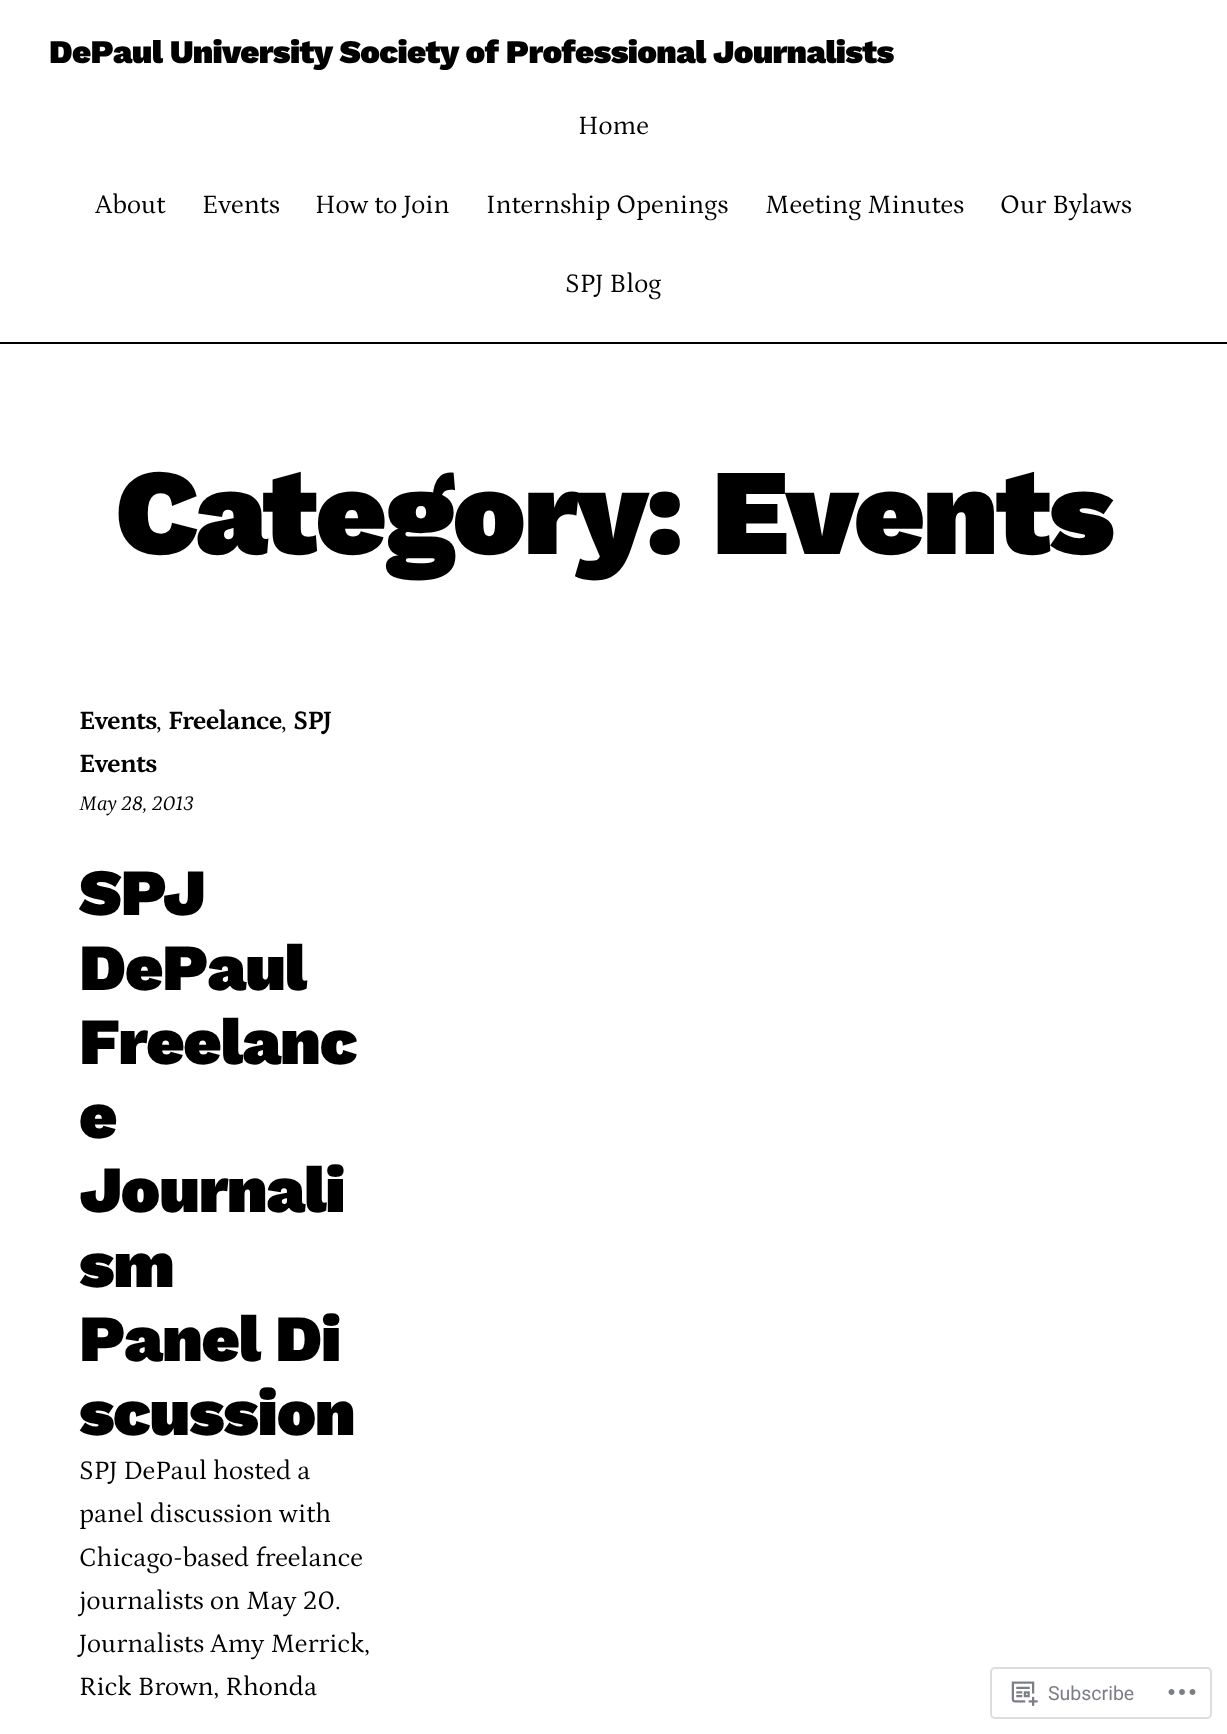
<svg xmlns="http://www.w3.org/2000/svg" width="1227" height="1734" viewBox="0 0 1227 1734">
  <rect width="100%" height="100%" fill="rgb(255,255,255)"/>
  <text x="49" y="63" font-family="Work Sans" font-size="33" font-weight="900" letter-spacing="-0.65" fill="rgb(0,0,0)">DePaul University Society of Professional Journalists</text>
  <g font-family="Petrona" font-size="27" fill="rgb(0,0,0)">
    <text x="578" y="134">Home</text>
    <text x="95" y="213">About</text>
    <text x="202" y="213">Events</text>
    <text x="315" y="213">How to Join</text>
    <text x="486" y="213">Internship Openings</text>
    <text x="765" y="213">Meeting Minutes</text>
    <text x="1000" y="213">Our Bylaws</text>
    <text x="565" y="292">SPJ Blog</text>
  </g>
  <rect x="0" y="342" width="1227" height="2" fill="rgb(0,0,0)"/>
  <text x="115" y="554" font-family="Work Sans" font-size="122.75" font-weight="900" letter-spacing="-2.5" fill="rgb(0,0,0)">Category: Events</text>
  <text x="79" y="729" font-family="Petrona" font-size="27" font-weight="bold" letter-spacing="-0.75" fill="rgb(0,0,0)">Events</text>
  <text x="156" y="729" font-family="Petrona" font-size="27" fill="rgb(0,0,0)">,</text>
  <text x="168" y="729" font-family="Petrona" font-size="27" font-weight="bold" letter-spacing="-0.75" fill="rgb(0,0,0)">Freelance</text>
  <text x="281" y="729" font-family="Petrona" font-size="27" fill="rgb(0,0,0)">,</text>
  <g font-family="Petrona" font-size="27" font-weight="bold" letter-spacing="-0.75" fill="rgb(0,0,0)">
    <text x="293" y="729">SPJ</text>
    <text x="79" y="772">Events</text>
  </g>
  <text x="79" y="810" font-family="Petrona" font-size="21" font-style="italic" fill="rgb(0,0,0)">May 28, 2013</text>
  <g font-family="Work Sans" font-size="66" font-weight="900" letter-spacing="-1.25" fill="rgb(0,0,0)">
    <text>
      <tspan x="79" y="915">SPJ</tspan>
      <tspan x="79" y="990">DePaul</tspan>
      <tspan x="79" y="1064">Freelanc</tspan>
      <tspan x="79" y="1138">e</tspan>
      <tspan x="79" y="1212">Journali</tspan>
      <tspan x="79" y="1287">sm</tspan>
      <tspan x="79" y="1361">Panel Di</tspan>
      <tspan x="79" y="1435">scussion</tspan>
    </text>
  </g>
  <g font-family="Petrona" font-size="27" fill="rgb(0,0,0)">
    <text>
      <tspan x="79" y="1479">SPJ DePaul hosted a</tspan>
      <tspan x="79" y="1522">panel discussion with</tspan>
      <tspan x="79" y="1566">Chicago-based freelance</tspan>
      <tspan x="79" y="1609">journalists on May 20.</tspan>
      <tspan x="79" y="1652">Journalists Amy Merrick,</tspan>
      <tspan x="79" y="1695">Rick Brown, Rhonda</tspan>
    </text>
  </g>
  <rect x="991" y="1668" width="220" height="50" rx="4" fill="none" stroke="rgb(221,221,223)" stroke-width="2"/>
  <image x="1011" y="1681" width="27" height="25" href="pic1.png"/>
  <text x="1048" y="1700" font-family="Roboto" font-size="19.5" fill="rgb(123,127,133)">Subscribe</text>
  <image x="1168" y="1689" width="28" height="6" href="pic2.png"/>
</svg>
